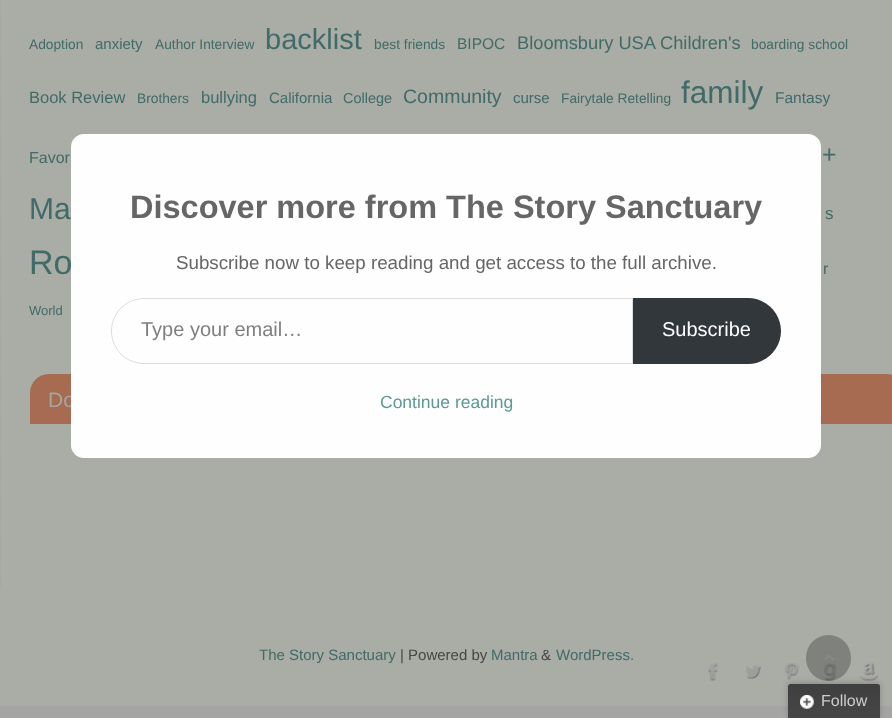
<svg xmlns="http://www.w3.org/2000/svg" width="892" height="718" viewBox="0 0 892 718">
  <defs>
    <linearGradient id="g1" gradientUnits="userSpaceOnUse" x1="788" y1="684" x2="788" y2="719"><stop offset="0" stop-color="rgb(63,63,63)"/><stop offset="1" stop-color="rgb(70,70,70)"/></linearGradient>
  </defs>
  <rect width="100%" height="100%" fill="rgb(165,165,164)"/>
  <rect x="0" y="0" width="892" height="706" fill="rgb(170,172,166)"/>
  <path d="M.5-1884V587.5" fill="none" stroke="rgb(164,164,164)" stroke-width="1.2" stroke-dasharray="1.25 1.25"/>
  <text x="29" y="49" font-family="Liberation Sans" font-size="13.75" fill="rgb(65,107,104)">Adoption</text>
  <text x="95" y="49" font-family="Liberation Sans" font-size="15" fill="rgb(65,107,104)">anxiety</text>
  <text x="155" y="49" font-family="Liberation Sans" font-size="13.75" fill="rgb(65,107,104)">Author Interview</text>
  <text x="265" y="49" font-family="Liberation Sans" font-size="29" fill="rgb(65,107,104)">backlist</text>
  <text x="374" y="49" font-family="Liberation Sans" font-size="13.75" fill="rgb(65,107,104)">best friends</text>
  <text x="457" y="49" font-family="Liberation Sans" font-size="15.5" fill="rgb(65,107,104)">BIPOC</text>
  <text x="517" y="49" font-family="Liberation Sans" font-size="18.25" fill="rgb(65,107,104)">Bloomsbury USA Children's</text>
  <text x="751" y="49" font-family="Liberation Sans" font-size="13.75" fill="rgb(65,107,104)">boarding school</text>
  <text x="29" y="103" font-family="Liberation Sans" font-size="16.5" fill="rgb(65,107,104)">Book Review</text>
  <text x="137" y="103" font-family="Liberation Sans" font-size="13.75" fill="rgb(65,107,104)">Brothers</text>
  <text x="201" y="103" font-family="Liberation Sans" font-size="16.5" fill="rgb(65,107,104)">bullying</text>
  <text x="269" y="103" font-family="Liberation Sans" font-size="15" fill="rgb(65,107,104)">California</text>
  <text x="343" y="103" font-family="Liberation Sans" font-size="14.5" fill="rgb(65,107,104)">College</text>
  <text x="403" y="103" font-family="Liberation Sans" font-size="19.5" fill="rgb(65,107,104)">Community</text>
  <text x="513" y="103" font-family="Liberation Sans" font-size="15" fill="rgb(65,107,104)">curse</text>
  <text x="561" y="103" font-family="Liberation Sans" font-size="13.75" fill="rgb(65,107,104)">Fairytale Retelling</text>
  <text x="681" y="103" font-family="Liberation Sans" font-size="31.5" fill="rgb(65,107,104)">family</text>
  <text x="775" y="103" font-family="Liberation Sans" font-size="15.5" fill="rgb(65,107,104)">Fantasy</text>
  <text x="29" y="163" font-family="Liberation Sans" font-size="16" fill="rgb(65,107,104)">Favor</text>
  <text x="822" y="163" font-family="Liberation Sans" font-size="25" fill="rgb(65,107,104)">+</text>
  <text x="29" y="219" font-family="Liberation Sans" font-size="30" fill="rgb(65,107,104)">Ma</text>
  <text x="825" y="219" font-family="Liberation Sans" font-size="17" fill="rgb(65,107,104)">s</text>
  <text x="29" y="274" font-family="Liberation Sans" font-size="34" fill="rgb(65,107,104)">Ro</text>
  <text x="823" y="274" font-family="Liberation Sans" font-size="16" fill="rgb(65,107,104)">r</text>
  <text x="29" y="315" font-family="Liberation Sans" font-size="13" fill="rgb(65,107,104)">World</text>
  <path d="M49 374H887C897.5 374 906 382.5 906 393V424H30V393C30 382.5 38.5 374 49 374Z" fill="rgb(166,107,81)"/>
  <text x="48" y="407" font-family="Liberation Sans" font-size="21" fill="rgb(165,165,164)">Do</text>
  <text x="259" y="660" font-family="Liberation Sans" font-size="15" fill="rgb(65,107,104)">The Story Sanctuary</text>
  <text x="400" y="660" font-family="Liberation Sans" font-size="15" fill="rgb(71,71,71)">| Powered by</text>
  <text x="491" y="660" font-family="Liberation Sans" font-size="15" fill="rgb(65,107,104)">Mantra</text>
  <text x="541" y="660" font-family="Liberation Sans" font-size="15" fill="rgb(71,71,71)">&amp;</text>
  <text x="556" y="660" font-family="Liberation Sans" font-size="15" fill="rgb(65,107,104)">WordPress.</text>
  <image x="708" y="662" width="10" height="19" href="pic1.png"/>
  <image x="746" y="665" width="15" height="14" href="pic2.png"/>
  <image x="785" y="663" width="14" height="17" href="pic3.png"/>
  <image x="824" y="663" width="12" height="18" href="pic4.png"/>
  <image x="859" y="662" width="20" height="19" href="pic5.png"/>
  <rect x="71" y="134" width="750" height="324" rx="13" fill="rgb(254,254,254)"/>
  <text x="130" y="218" font-family="Liberation Sans" font-size="32.5" font-weight="bold" fill="rgb(102,102,102)">Discover more from The Story Sanctuary</text>
  <text x="176" y="269" font-family="Liberation Sans" font-size="18.75" fill="rgb(102,102,102)">Subscribe now to keep reading and get access to the full archive.</text>
  <path d="M144 298.5H632.5V363.5H144C126 363.5 111.5 349 111.5 331C111.5 313 126 298.5 144 298.5Z" fill="none" stroke="rgb(221,221,221)"/>
  <text x="141" y="336" font-family="Liberation Sans" font-size="20" fill="rgb(127,127,127)">Type your email…</text>
  <path d="M633 298H748C766 298 781 313 781 331C781 349 766 364 748 364H633Z" fill="rgb(50,55,60)"/>
  <text x="662" y="336" font-family="Liberation Sans" font-size="20" fill="rgb(255,255,255)">Subscribe</text>
  <text x="380" y="408" font-family="Liberation Sans" font-size="17.5" fill="rgb(93,153,149)">Continue reading</text>
  <rect x="806" y="635" width="45" height="46" rx="22.5" fill="rgba(0,0,0,0.25)"/>
  <image x="824" y="655" width="10" height="5" href="pic6.png"/>
  <rect x="788" y="683" width="92" height="35" rx="2.5" fill="rgba(0,0,0,0.2)" filter="blur(3px)"/>
  <path d="M790.5 684H877.5C879 684 880 685 880 686.5V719H788V686.5C788 685 789 684 790.5 684Z" fill="url(#g1)"/>
  <image x="800" y="695" width="14" height="14" href="pic7.png"/>
  <text x="821" y="706" font-family="Liberation Sans" font-size="16" fill="rgb(204,204,204)">Follow</text>
</svg>
